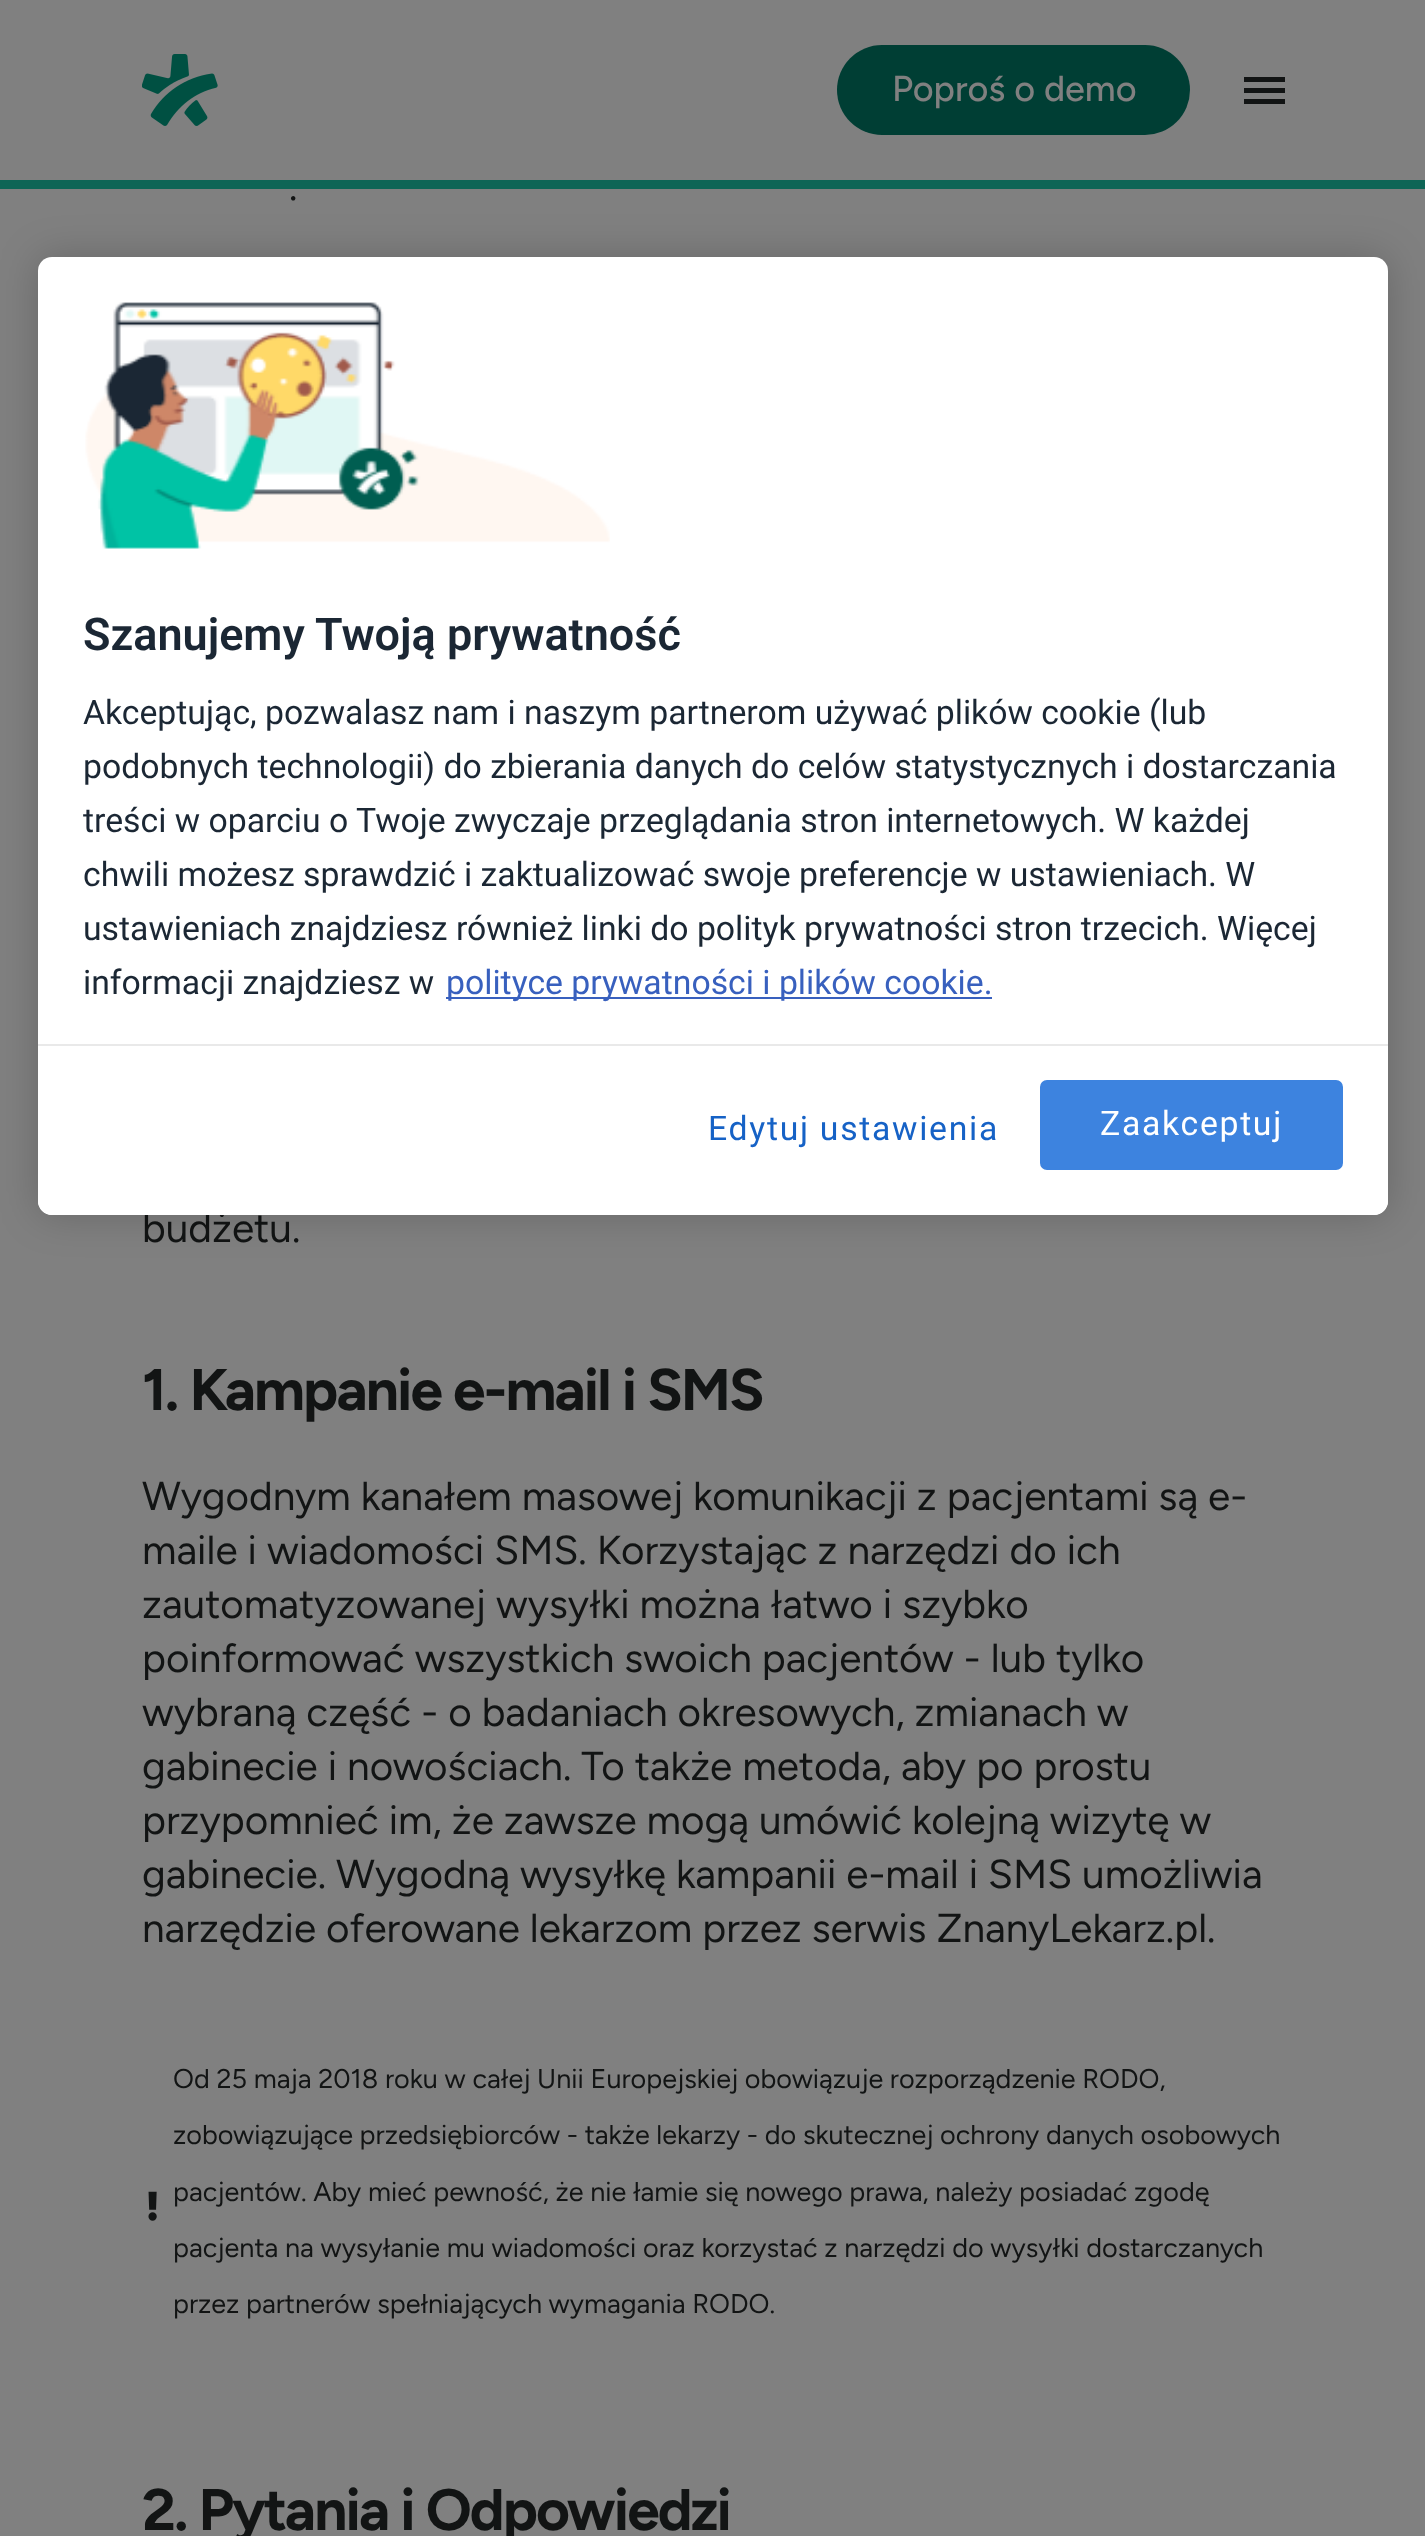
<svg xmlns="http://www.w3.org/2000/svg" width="1425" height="2536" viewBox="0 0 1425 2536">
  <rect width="100%" height="100%" fill="rgb(128,128,128)"/>
  <image x="142" y="54" width="76" height="72" href="pic1.png"/>
  <rect x="837" y="45" width="353" height="90" rx="45" fill="rgb(0,62,52)"/>
  <text x="892" y="101" font-family="Figtree" font-size="36" font-weight="500" fill="rgb(128,128,128)">Poproś o demo</text>
  <rect x="1244" y="77" width="41" height="5" fill="rgb(18,20,20)"/>
  <rect x="1244" y="88" width="41" height="5" fill="rgb(18,20,20)"/>
  <rect x="1244" y="99" width="41" height="5" fill="rgb(18,20,20)"/>
  <rect x="0" y="180" width="1425" height="9" fill="rgb(14,101,86)"/>
  <g font-family="Figtree" font-size="40.5" fill="rgb(18,20,20)">
    <text x="289" y="200">.</text>
    <text x="142" y="1242">budżetu.</text>
  </g>
  <text x="142" y="1410" font-family="Figtree" font-size="58.5" font-weight="bold" letter-spacing="-1.9" fill="rgb(18,20,20)">1. Kampanie e-mail i SMS</text>
  <g font-family="Figtree" font-size="40.5" fill="rgb(18,20,20)">
    <text>
      <tspan x="142" y="1510">Wygodnym kanałem masowej komunikacji z pacjentami są e-</tspan>
      <tspan x="142" y="1564">maile i wiadomości SMS. Korzystając z narzędzi do ich</tspan>
      <tspan x="142" y="1618">zautomatyzowanej wysyłki można łatwo i szybko</tspan>
      <tspan x="142" y="1672">poinformować wszystkich swoich pacjentów - lub tylko</tspan>
      <tspan x="142" y="1726">wybraną część - o badaniach okresowych, zmianach w</tspan>
      <tspan x="142" y="1780">gabinecie i nowościach. To także metoda, aby po prostu</tspan>
      <tspan x="142" y="1834">przypomnieć im, że zawsze mogą umówić kolejną wizytę w</tspan>
      <tspan x="142" y="1888">gabinecie. Wygodną wysyłkę kampanii e-mail i SMS umożliwia</tspan>
      <tspan x="142" y="1942">narzędzie oferowane lekarzom przez serwis ZnanyLekarz.pl.</tspan>
    </text>
  </g>
  <text x="146" y="2220" font-family="Figtree" font-size="40.5" font-weight="900" fill="rgb(18,20,20)">!</text>
  <g font-family="Figtree" font-size="27" fill="rgb(18,20,20)">
    <text x="173" y="2088">Od 25 maja 2018 roku w całej Unii Europejskiej obowiązuje rozporządzenie RODO,</text>
    <text x="173" y="2144">zobowiązujące przedsiębiorców - także lekarzy - do skutecznej ochrony danych osobowych</text>
    <text x="173" y="2201">pacjentów. Aby mieć pewność, że nie łamie się nowego prawa, należy posiadać zgodę</text>
    <text x="173" y="2257">pacjenta na wysyłanie mu wiadomości oraz korzystać z narzędzi do wysyłki dostarczanych</text>
    <text x="173" y="2313">przez partnerów spełniających wymagania RODO.</text>
  </g>
  <text x="142" y="2530" font-family="Figtree" font-size="58.5" font-weight="bold" letter-spacing="-1.9" fill="rgb(18,20,20)">2. Pytania i Odpowiedzi</text>
  <rect x="38" y="257" width="1350" height="958" rx="14" fill="rgba(0,0,0,0.2)" filter="blur(20px)"/>
  <rect x="38" y="257" width="1350" height="958" rx="14" fill="rgb(255,255,255)"/>
  <image x="85" y="302" width="525" height="247" href="pic2.png"/>
  <text x="83" y="650" font-family="Roboto" font-size="45" font-weight="600" fill="rgb(27,39,52)">Szanujemy Twoją prywatność</text>
  <g font-family="Roboto" font-size="33.75" fill="rgb(27,39,52)">
    <text>
      <tspan x="83" y="724">Akceptując, pozwalasz nam i naszym partnerom używać plików cookie (lub</tspan>
      <tspan x="83" y="778">podobnych technologii) do zbierania danych do celów statystycznych i dostarczania</tspan>
      <tspan x="83" y="832">treści w oparciu o Twoje zwyczaje przeglądania stron internetowych. W każdej</tspan>
      <tspan x="83" y="886">chwili możesz sprawdzić i zaktualizować swoje preferencje w ustawieniach. W</tspan>
      <tspan x="83" y="940">ustawieniach znajdziesz również linki do polityk prywatności stron trzecich. Więcej</tspan>
      <tspan x="83" y="994">informacji znajdziesz w</tspan>
    </text>
  </g>
  <rect x="446" y="997" width="546" height="2" fill="rgb(56,96,190)"/>
  <text x="446" y="994" font-family="Roboto" font-size="33.75" fill="rgb(56,96,190)">polityce prywatności i plików cookie.</text>
  <path d="M38 1044H1388V1201C1388 1208.5 1381.5 1215 1374 1215H52C44.5 1215 38 1208.5 38 1201Z" fill="rgb(255,255,255)"/>
  <rect x="38" y="1044" width="1350" height="2" fill="rgb(233,233,233)"/>
  <text x="708" y="1140" font-family="Roboto" font-size="33.75" letter-spacing="1.7" fill="rgb(22,98,198)">Edytuj ustawienia</text>
  <rect x="1041" y="1081" width="301" height="88" rx="6" fill="rgb(61,131,223)" stroke="rgb(61,131,223)" stroke-width="2"/>
  <text x="1100" y="1135" font-family="Roboto" font-size="33.75" letter-spacing="1.7" fill="rgb(255,255,255)">Zaakceptuj</text>
</svg>
